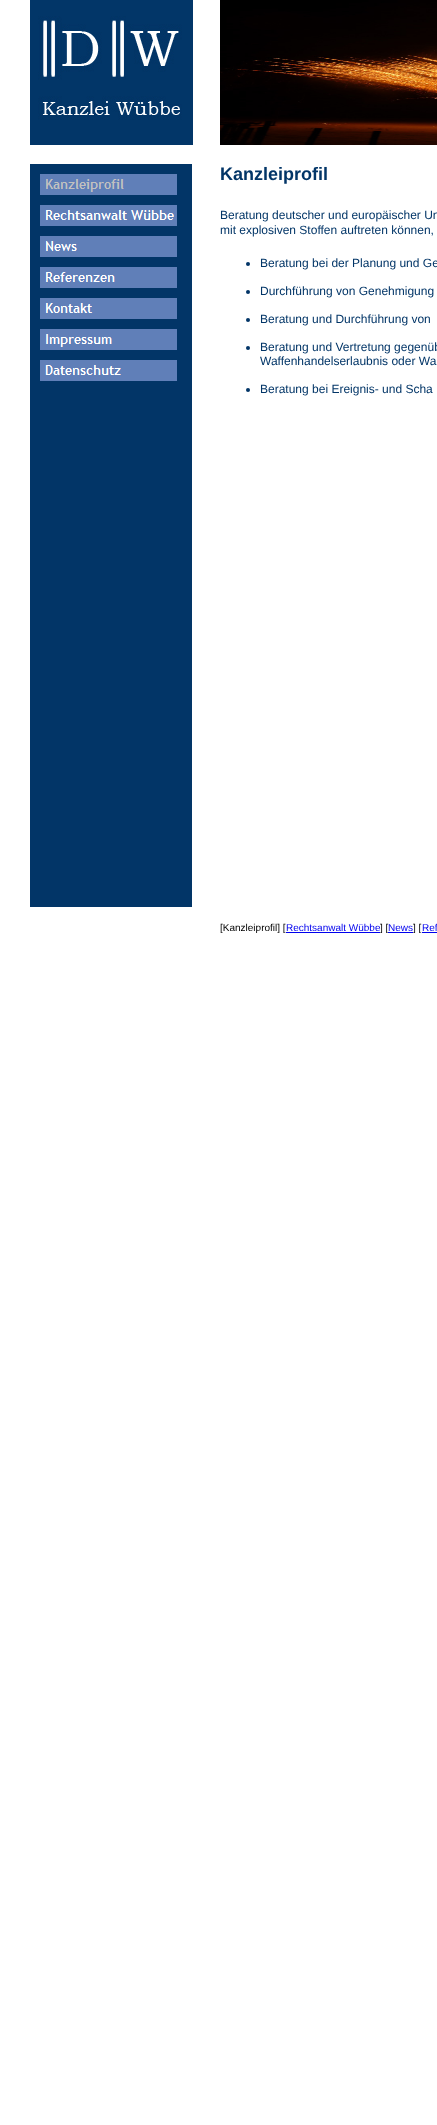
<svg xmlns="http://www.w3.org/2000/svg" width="437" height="2125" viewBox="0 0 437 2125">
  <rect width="100%" height="100%" fill="rgb(255,255,255)"/>
  <image x="30" y="0" width="163" height="145" href="pic1.png"/>
  <rect x="30" y="164" width="162" height="743" fill="rgb(2,53,103)"/>
  <image x="40" y="174" width="137" height="21" href="pic2.png"/>
  <image x="40" y="205" width="137" height="21" href="pic3.png"/>
  <image x="40" y="236" width="137" height="21" href="pic4.png"/>
  <image x="40" y="267" width="137" height="21" href="pic5.png"/>
  <image x="40" y="298" width="137" height="21" href="pic6.png"/>
  <image x="40" y="329" width="137" height="21" href="pic7.png"/>
  <image x="40" y="360" width="137" height="21" href="pic8.png"/>
  <image x="220" y="0" width="217" height="145" href="pic9.png"/>
  <text x="220" y="180" font-family="Liberation Sans" font-size="18" font-weight="bold" fill="rgb(2,53,103)">Kanzleiprofil</text>
  <g font-family="Liberation Sans" font-size="12" fill="rgb(2,53,103)">
    <text>
      <tspan x="220" y="219">Beratung deutscher und europäischer Un</tspan>
      <tspan x="220" y="234">mit explosiven Stoffen auftreten können,</tspan>
    </text>
  </g>
  <circle cx="248" cy="264" r="2" fill="rgb(2,53,103)"/>
  <text x="260" y="267" font-family="Liberation Sans" font-size="12" fill="rgb(2,53,103)">Beratung bei der Planung und Ge</text>
  <circle cx="248" cy="292" r="2" fill="rgb(2,53,103)"/>
  <text x="260" y="295" font-family="Liberation Sans" font-size="12" fill="rgb(2,53,103)">Durchführung von Genehmigung</text>
  <circle cx="248" cy="320" r="2" fill="rgb(2,53,103)"/>
  <text x="260" y="323" font-family="Liberation Sans" font-size="12" fill="rgb(2,53,103)">Beratung und Durchführung von</text>
  <circle cx="248" cy="348" r="2" fill="rgb(2,53,103)"/>
  <g font-family="Liberation Sans" font-size="12" fill="rgb(2,53,103)">
    <text>
      <tspan x="260" y="351">Beratung und Vertretung gegenüb</tspan>
      <tspan x="260" y="365">Waffenhandelserlaubnis oder Wa</tspan>
    </text>
  </g>
  <circle cx="248" cy="390" r="2" fill="rgb(2,53,103)"/>
  <text x="260" y="393" font-family="Liberation Sans" font-size="12" fill="rgb(2,53,103)">Beratung bei Ereignis- und Scha</text>
  <text x="220" y="931" font-family="Liberation Sans" font-size="10" fill="rgb(0,0,0)">[Kanzleiprofil] [</text>
  <text x="286" y="931" font-family="Liberation Sans" font-size="10" fill="rgb(0,0,238)">Rechtsanwalt Wübbe</text>
  <rect x="286" y="932" width="94" height="1" fill="rgb(0,0,238)"/>
  <text x="380" y="931" font-family="Liberation Sans" font-size="10" fill="rgb(0,0,0)">] [</text>
  <text x="388" y="931" font-family="Liberation Sans" font-size="10" fill="rgb(0,0,238)">News</text>
  <rect x="388" y="932" width="25" height="1" fill="rgb(0,0,238)"/>
  <text x="413" y="931" font-family="Liberation Sans" font-size="10" fill="rgb(0,0,0)">] [</text>
  <text x="422" y="931" font-family="Liberation Sans" font-size="10" fill="rgb(0,0,238)">Ref</text>
  <rect x="422" y="932" width="15" height="1" fill="rgb(0,0,238)"/>
</svg>
